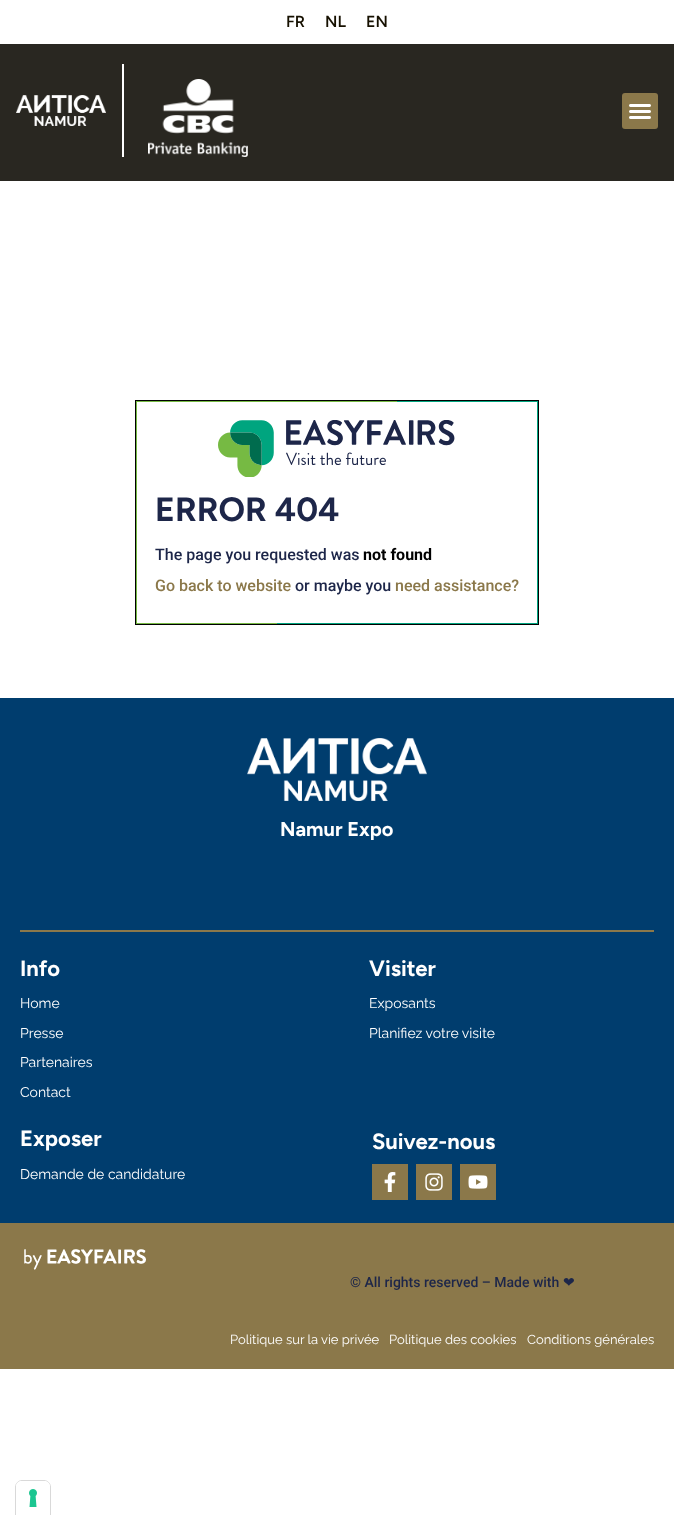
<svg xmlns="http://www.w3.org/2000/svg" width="674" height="1515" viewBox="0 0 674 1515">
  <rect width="100%" height="100%" fill="rgb(255,255,255)"/>
  <g font-family="Figtree" font-size="16" font-weight="600" fill="rgb(22,16,0)">
    <text x="286" y="27">FR</text>
    <text x="325" y="27">NL</text>
    <text x="366" y="27">EN</text>
  </g>
  <rect x="0" y="44" width="674" height="137" fill="rgb(41,39,33)"/>
  <image x="16" y="95" width="90" height="31" href="pic1.png"/>
  <rect x="122" y="64" width="2" height="93" fill="rgb(255,255,255)"/>
  <image x="148" y="79" width="100" height="78" href="pic2.png"/>
  <rect x="622" y="93" width="36" height="36" rx="3" fill="rgb(139,120,74)"/>
  <image x="629" y="104" width="22" height="15" href="pic3.png"/>
  <image x="218" y="420" width="237" height="57" href="pic4.png"/>
  <rect x="135.5" y="400.5" width="403" height="224" fill="none" stroke="rgb(0,0,0)"/>
  <path d="M136 401V624H277V623H137V402H397V401Z" fill="rgb(118,186,67)"/>
  <path d="M397 401V402H537V623H277V624H538V401Z" fill="rgb(0,165,127)"/>
  <text x="155" y="521" font-family="Figtree" font-size="33.75" font-weight="bold" fill="rgb(29,38,73)">ERROR 404</text>
  <text x="155" y="560" font-family="Roboto" font-size="16" font-weight="500" fill="rgb(29,38,73)">The page you requested was</text>
  <text x="363" y="560" font-family="Roboto" font-size="16" font-weight="bold" fill="rgb(0,0,0)">not found</text>
  <text x="155" y="591" font-family="Roboto" font-size="16" font-weight="500" fill="rgb(139,120,74)">Go back to website</text>
  <text x="295" y="591" font-family="Roboto" font-size="16" font-weight="500" fill="rgb(29,38,73)">or maybe you</text>
  <text x="395" y="591" font-family="Roboto" font-size="16" font-weight="500" fill="rgb(139,120,74)">need assistance?</text>
  <rect x="0" y="698" width="674" height="525" fill="rgb(0,61,110)"/>
  <rect x="20" y="930" width="634" height="2" fill="rgb(139,120,74)"/>
  <image x="247" y="738" width="180" height="63" href="pic5.png"/>
  <text x="280" y="836" font-family="Figtree" font-size="20" font-weight="bold" fill="rgb(255,255,255)">Namur Expo</text>
  <text x="20" y="976" font-family="Figtree" font-size="22" font-weight="bold" fill="rgb(255,255,255)">Info</text>
  <g font-family="Raleway" font-size="14" fill="rgb(255,255,255)">
    <text x="20" y="1008">Home</text>
    <text x="20" y="1038">Presse</text>
    <text x="20" y="1067">Partenaires</text>
    <text x="20" y="1097">Contact</text>
  </g>
  <text x="369" y="976" font-family="Figtree" font-size="22" font-weight="bold" fill="rgb(255,255,255)">Visiter</text>
  <g font-family="Raleway" font-size="14" fill="rgb(255,255,255)">
    <text x="369" y="1008">Exposants</text>
    <text x="369" y="1038">Planifiez votre visite</text>
  </g>
  <text x="20" y="1146" font-family="Figtree" font-size="22" font-weight="bold" fill="rgb(255,255,255)">Exposer</text>
  <text x="20" y="1179" font-family="Raleway" font-size="14" fill="rgb(255,255,255)">Demande de candidature</text>
  <text x="372" y="1149" font-family="Figtree" font-size="22" font-weight="bold" fill="rgb(255,255,255)">Suivez-nous</text>
  <rect x="372" y="1164" width="36" height="36" fill="rgb(139,120,74)"/>
  <image x="384" y="1172" width="12" height="20" href="pic6.png"/>
  <rect x="416" y="1164" width="36" height="36" fill="rgb(139,120,74)"/>
  <image x="425" y="1173" width="18" height="18" href="pic7.png"/>
  <rect x="460" y="1164" width="36" height="36" fill="rgb(139,120,74)"/>
  <image x="468" y="1175" width="20" height="14" href="pic8.png"/>
  <rect x="0" y="1223" width="674" height="146" fill="rgb(139,120,74)"/>
  <image x="24" y="1249" width="122" height="21" href="pic9.png"/>
  <text x="350" y="1287" font-family="Roboto" font-size="14" font-weight="500" fill="rgb(29,38,73)">© All rights reserved – Made with</text>
  <text x="563" y="1287" font-family="DejaVu Sans" font-size="14" fill="rgb(29,38,73)">❤</text>
  <g font-family="Raleway" font-size="13" fill="rgb(255,255,255)">
    <text x="230" y="1344">Politique sur la vie privée</text>
    <text x="389" y="1344">Politique des cookies</text>
    <text x="527" y="1344">Conditions générales</text>
  </g>
  <path d="M22 1480.5H44C47.5 1480.5 50.5 1483.5 50.5 1487V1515.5H15.5V1487C15.5 1483.5 18.5 1480.5 22 1480.5Z" fill="none" stroke="rgb(217,217,217)"/>
  <path d="M22 1481H44C47.5 1481 50 1483.5 50 1487V1515H16V1487C16 1483.5 18.5 1481 22 1481Z" fill="rgb(255,255,255)"/>
  <image x="29" y="1489" width="8" height="18" href="pic10.png"/>
</svg>
